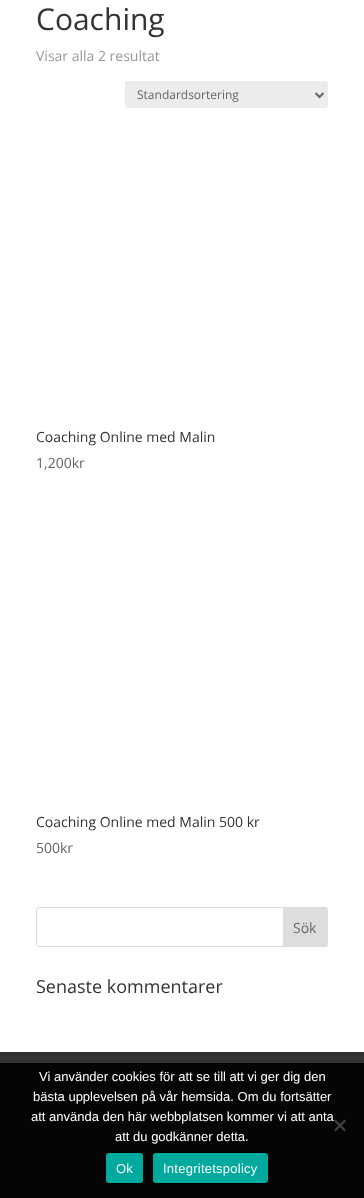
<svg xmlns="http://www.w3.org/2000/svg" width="364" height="1198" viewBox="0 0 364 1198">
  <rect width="100%" height="100%" fill="rgb(255,255,255)"/>
  <rect x="0" y="1052" width="364" height="11" fill="rgb(51,51,51)"/>
  <text x="36" y="30" font-family="Open Sans" font-size="30" fill="rgb(51,51,51)">Coaching</text>
  <text x="36" y="61" font-family="Open Sans" font-size="14" fill="rgb(153,153,153)">Visar alla 2 resultat</text>
  <rect x="125" y="81" width="203" height="27" rx="3" fill="rgb(236,236,236)"/>
  <path d="M315.5 93L319.5 97L323.5 93" fill="none" stroke="rgb(102,102,102)" stroke-width="2"/>
  <text x="137" y="99" font-family="Open Sans" font-size="12" fill="rgb(102,102,102)">Standardsortering</text>
  <text x="36" y="442" font-family="Open Sans" font-size="14" fill="rgb(51,51,51)">Coaching Online med Malin</text>
  <text x="36" y="468" font-family="Open Sans" font-size="14" fill="rgb(102,102,102)">1,200kr</text>
  <text x="36" y="827" font-family="Open Sans" font-size="14" fill="rgb(51,51,51)">Coaching Online med Malin 500 kr</text>
  <text x="36" y="853" font-family="Open Sans" font-size="14" fill="rgb(102,102,102)">500kr</text>
  <rect x="36.5" y="907.5" width="291" height="39" rx="2.5" fill="none" stroke="rgb(221,221,221)"/>
  <path d="M283.5 907.5H325C326.5 907.5 327.5 908.5 327.5 910V944C327.5 945.5 326.5 946.5 325 946.5H283.5Z" fill="rgb(221,221,221)" stroke="rgb(221,221,221)"/>
  <text x="293" y="933" font-family="Open Sans" font-size="14" fill="rgb(102,102,102)">Sök</text>
  <text x="36" y="993" font-family="Open Sans" font-size="18" fill="rgb(51,51,51)">Senaste kommentarer</text>
  <rect x="0" y="1063" width="364" height="135" fill="rgb(5,5,5)"/>
  <g font-family="Liberation Sans" font-size="13" fill="rgb(255,255,255)">
    <text x="39" y="1081">Vi använder cookies för att se till att vi ger dig den</text>
    <text x="33" y="1101">bästa upplevelsen på vår hemsida. Om du fortsätter</text>
    <text x="31" y="1121">att använda den här webbplatsen kommer vi att anta</text>
    <text x="115" y="1141">att du godkänner detta.</text>
  </g>
  <path d="M344.5 1119.5L346 1121L335.5 1131.5L334 1130Z" fill="rgb(66,66,66)"/>
  <path d="M334 1121L335.5 1119.5L346 1130L344.5 1131.5Z" fill="rgb(66,66,66)"/>
  <rect x="106" y="1153" width="37" height="30" rx="3" fill="rgb(0,169,157)"/>
  <text x="116" y="1173" font-family="Liberation Sans" font-size="13" letter-spacing="0.25" fill="rgb(255,255,255)">Ok</text>
  <rect x="153" y="1153" width="115" height="30" rx="3" fill="rgb(0,169,157)"/>
  <text x="163" y="1173" font-family="Liberation Sans" font-size="13" letter-spacing="0.25" fill="rgb(255,255,255)">Integritetspolicy</text>
</svg>
